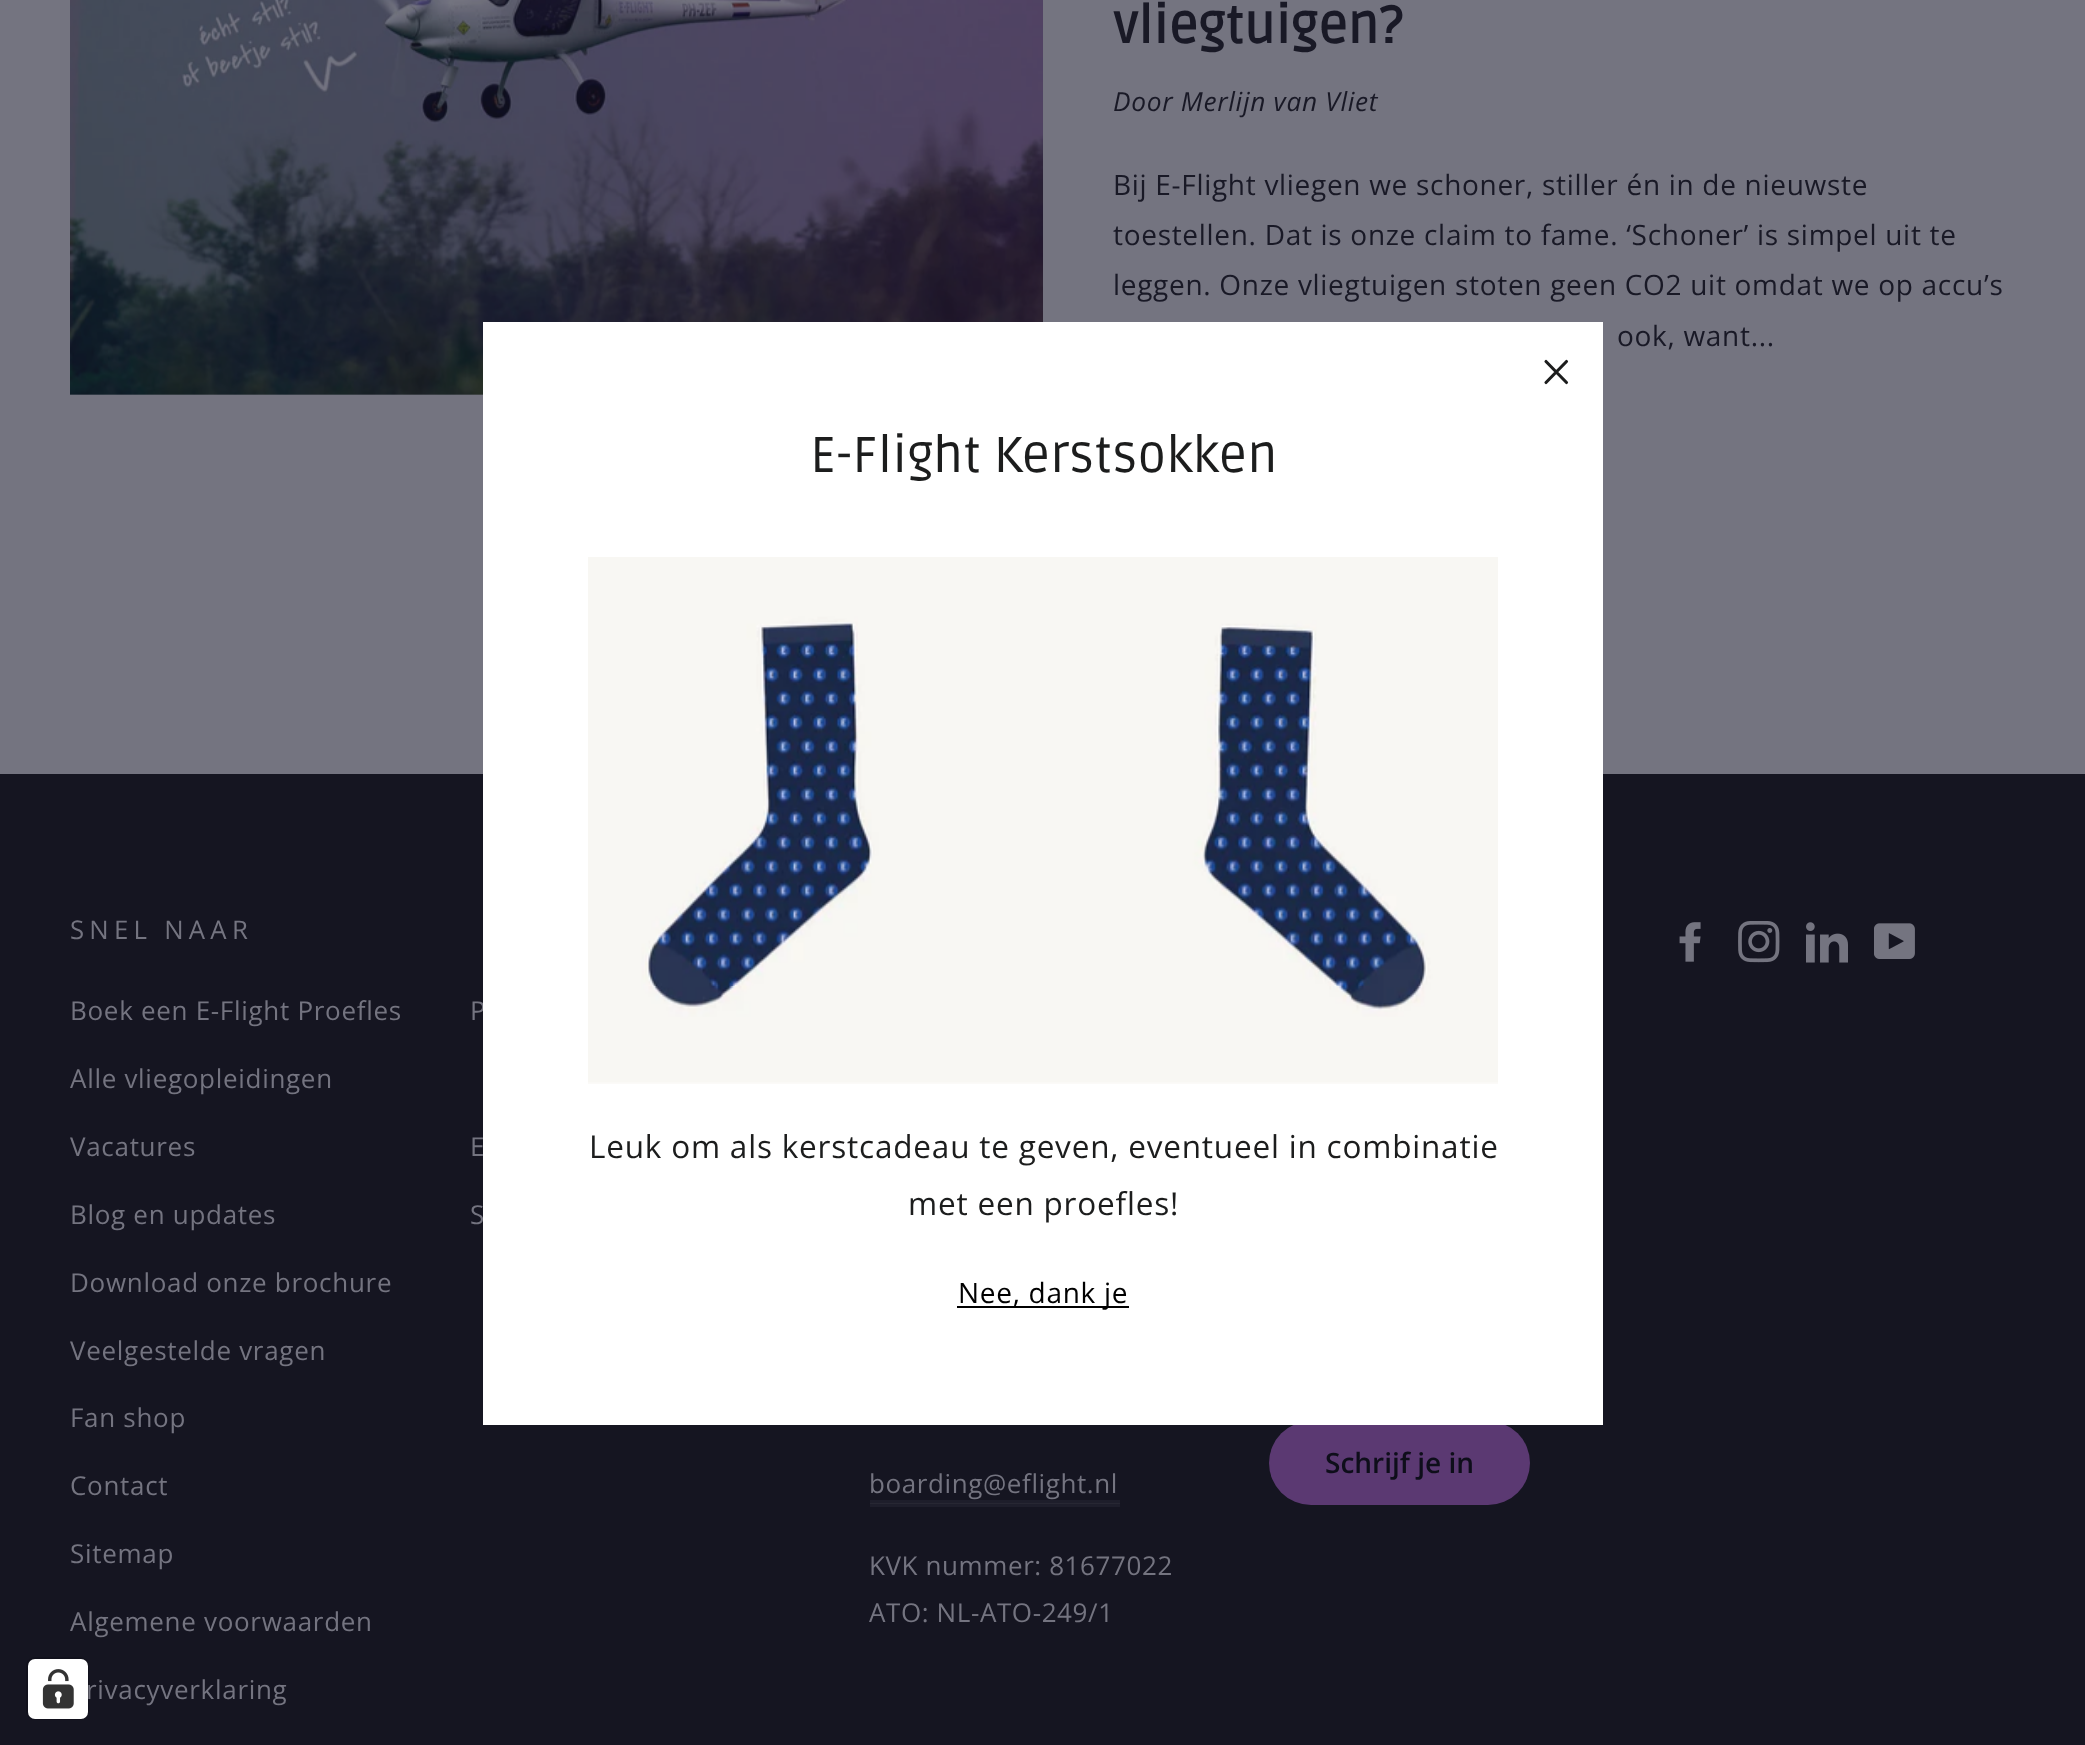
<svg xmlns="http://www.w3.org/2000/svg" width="2085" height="1745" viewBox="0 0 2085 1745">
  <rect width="100%" height="100%" fill="rgb(116,116,128)"/>
  <image x="70" y="0" width="973" height="395" href="pic1.png"/>
  <text x="1113" y="43" font-family="Ruda" font-size="52" font-weight="bold" fill="rgb(25,25,38)">vliegtuigen?</text>
  <text x="1113" y="111" font-family="Open Sans" font-size="26.25" font-style="italic" letter-spacing="0.7" fill="rgb(25,25,38)">Door Merlijn van Vliet</text>
  <g font-family="Open Sans" font-size="28" letter-spacing="0.7" fill="rgb(25,25,38)">
    <text>
      <tspan x="1113" y="195">Bij E-Flight vliegen we schoner, stiller én in de nieuwste</tspan>
      <tspan x="1113" y="245">toestellen. Dat is onze claim to fame. ‘Schoner’ is simpel uit te</tspan>
      <tspan x="1113" y="295">leggen. Onze vliegtuigen stoten geen CO2 uit omdat we op accu’s</tspan>
    </text>
    <text x="1617" y="346">ook, want...</text>
  </g>
  <rect x="0" y="774" width="2085" height="971" fill="rgb(21,21,33)"/>
  <rect x="870" y="1504" width="250" height="3" fill="rgb(30,30,43)"/>
  <text x="70" y="939" font-family="Open Sans" font-size="25.75" letter-spacing="5.25" fill="rgb(116,116,128)">SNEL NAAR</text>
  <g font-family="Open Sans" font-size="26" letter-spacing="0.7" fill="rgb(116,116,128)">
    <text x="70" y="1020">Boek een E-Flight Proefles</text>
    <text x="70" y="1088">Alle vliegopleidingen</text>
    <text x="70" y="1156">Vacatures</text>
    <text x="70" y="1224">Blog en updates</text>
    <text x="70" y="1292">Download onze brochure</text>
    <text x="70" y="1360">Veelgestelde vragen</text>
    <text x="70" y="1427">Fan shop</text>
    <text x="70" y="1495">Contact</text>
    <text x="70" y="1563">Sitemap</text>
    <text x="70" y="1631">Algemene voorwaarden</text>
    <text x="86" y="1699">rivacyverklaring</text>
  </g>
  <image x="1679" y="922" width="22" height="40" href="pic2.png"/>
  <image x="1738" y="921" width="42" height="42" href="pic3.png"/>
  <image x="1806" y="922" width="42" height="41" href="pic4.png"/>
  <image x="1874" y="923" width="41" height="36" href="pic5.png"/>
  <g font-family="Open Sans" font-size="26" letter-spacing="0.7" fill="rgb(116,116,128)">
    <text x="470" y="1020">P</text>
    <text x="470" y="1156">E</text>
    <text x="470" y="1224">S</text>
  </g>
  <rect x="1269" y="1421" width="261" height="84" rx="42" fill="rgb(91,57,114)"/>
  <text x="1325" y="1473" font-family="Open Sans" font-size="28" font-weight="600" fill="rgb(14,14,26)">Schrijf je in</text>
  <text x="869" y="1493" font-family="Open Sans" font-size="26" letter-spacing="0.6" fill="rgb(116,116,128)">boarding@eflight.nl</text>
  <rect x="870" y="1500" width="250" height="3" fill="rgb(30,30,43)"/>
  <rect x="870" y="1503" width="250" height="1" fill="rgb(39,39,51)"/>
  <g font-family="Open Sans" font-size="26" letter-spacing="0.6" fill="rgb(116,116,128)">
    <text>
      <tspan x="869" y="1575">KVK nummer: 81677022</tspan>
      <tspan x="869" y="1622">ATO: NL-ATO-249/1</tspan>
    </text>
  </g>
  <rect x="483" y="322" width="1120" height="1103" fill="rgb(255,255,255)"/>
  <path d="M1546 361.5L1566.5 382.5M1566.5 361.5L1546 382.5" fill="none" stroke="rgb(28,29,29)" stroke-width="3.1" stroke-linecap="round" stroke-linejoin="round"/>
  <text x="810" y="472" font-family="Ruda" font-size="50.5" fill="rgb(28,29,29)">E-Flight Kerstsokken</text>
  <image x="588" y="557" width="910" height="527" href="pic6.png"/>
  <g font-family="Open Sans" font-size="31.5" letter-spacing="0.8" fill="rgb(28,29,29)">
    <text x="589" y="1158">Leuk om als kerstcadeau te geven, eventueel in combinatie</text>
    <text x="908" y="1215">met een proefles!</text>
  </g>
  <rect x="957" y="1306" width="172" height="2" fill="rgb(0,0,0)"/>
  <text x="958" y="1303" font-family="Open Sans" font-size="28" letter-spacing="0.7" fill="rgb(0,0,0)">Nee, dank je</text>
  <rect x="27" y="1658" width="61" height="61" rx="8" fill="none" stroke="rgba(0,0,0,0.15)" stroke-width="2"/>
  <rect x="28" y="1659" width="60" height="60" rx="7" fill="rgb(255,255,255)"/>
  <image x="42" y="1669" width="32" height="40" href="pic7.png"/>
</svg>
